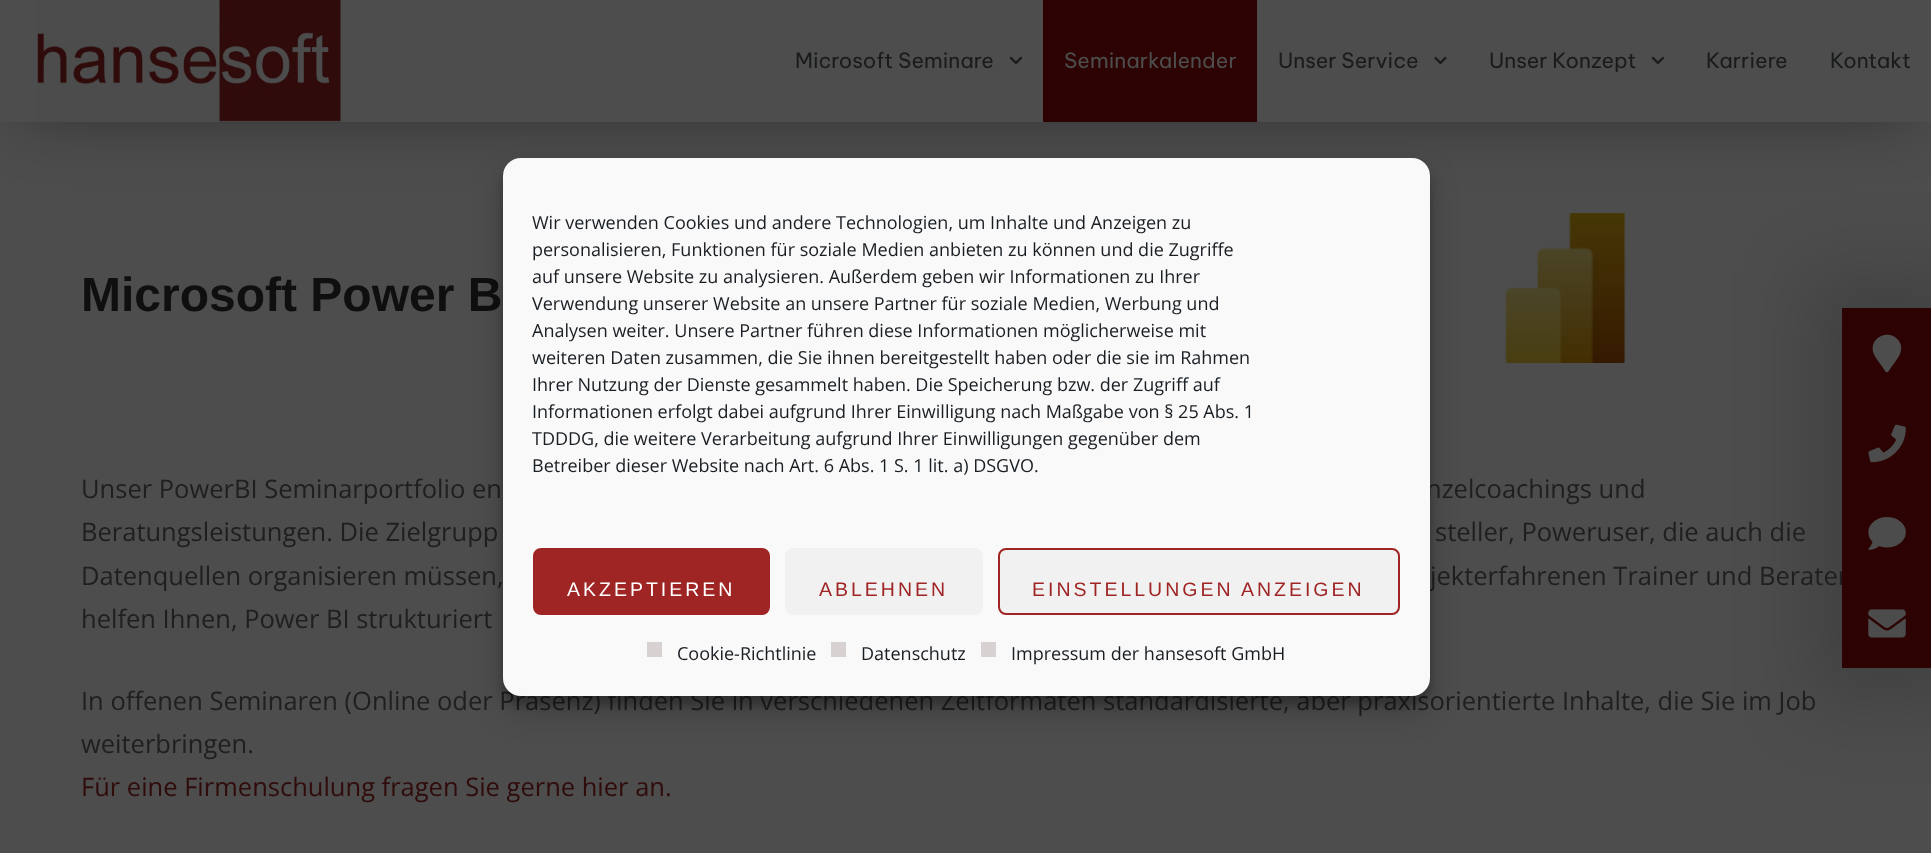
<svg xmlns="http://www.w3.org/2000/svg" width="1931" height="853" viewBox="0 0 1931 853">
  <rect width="100%" height="100%" fill="rgb(77,77,77)"/>
  <rect x="23" y="30" width="1887" height="77" fill="rgba(0,0,0,0.5)" filter="blur(34.5px)"/>
  <rect x="0" y="0" width="1931" height="122" fill="rgb(77,77,77)"/>
  <image x="37" y="0" width="304" height="122" href="pic1.png"/>
  <text x="795" y="68" font-family="Be Vietnam Pro" font-size="21" fill="rgb(25,27,29)">Microsoft Seminare</text>
  <image x="1009" y="56" width="14" height="9" href="pic2.png"/>
  <rect x="1043" y="0" width="214" height="122" fill="rgb(44,2,2)"/>
  <text x="1064" y="68" font-family="Be Vietnam Pro" font-size="21" fill="rgb(77,77,77)">Seminarkalender</text>
  <text x="1278" y="68" font-family="Be Vietnam Pro" font-size="21" fill="rgb(25,27,29)">Unser Service</text>
  <image x="1434" y="56" width="13" height="9" href="pic3.png"/>
  <text x="1489" y="68" font-family="Be Vietnam Pro" font-size="21" fill="rgb(25,27,29)">Unser Konzept</text>
  <image x="1651" y="56" width="14" height="9" href="pic2.png"/>
  <g font-family="Be Vietnam Pro" font-size="21" fill="rgb(25,27,29)">
    <text x="1706" y="68">Karriere</text>
    <text x="1830" y="68">Kontakt</text>
  </g>
  <rect x="1806" y="272" width="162" height="432" fill="rgba(0,0,0,0.15)" filter="blur(37.5px)"/>
  <text x="1430" y="585" font-family="Open Sans" font-size="25.5" fill="rgb(31,31,31)">jekterfahrenen Trainer und Berater</text>
  <rect x="1842" y="308" width="89" height="360" fill="rgb(44,2,2)"/>
  <path d="M1885.5 371.5L1879.5 363C1877 359.5 1874 355.5 1873 351.5C1870 336.5 1890 328.5 1899 341C1905 350.5 1897.5 358.5 1892.5 365.5L1888 372C1887 372.5 1886 372 1885.5 371.5Z" fill="rgb(77,77,77)"/>
  <image x="1868" y="424" width="38" height="39" href="pic4.png"/>
  <image x="1868" y="517" width="38" height="33" href="pic5.png"/>
  <image x="1868" y="609" width="38" height="29" href="pic6.png"/>
  <text x="81" y="311" font-family="Liberation Sans" font-size="48" font-weight="bold" fill="rgb(15,15,15)">Microsoft Power B</text>
  <image x="1504" y="213" width="122" height="150" href="pic7.png"/>
  <g font-family="Open Sans" font-size="25.5" fill="rgb(31,31,31)">
    <text x="81" y="498">Unser PowerBI Seminarportfolio en</text>
    <text x="1426" y="498">nzelcoachings und</text>
    <text x="81" y="541">Beratungsleistungen. Die Zielgrupp</text>
    <text x="1435" y="541">steller, Poweruser, die auch die</text>
    <text>
      <tspan x="81" y="585">Datenquellen organisieren müssen,</tspan>
      <tspan x="81" y="628">helfen Ihnen, Power BI strukturiert</tspan>
    </text>
    <text>
      <tspan x="81" y="710">In offenen Seminaren (Online oder Präsenz) finden Sie in verschiedenen Zeitformaten standardisierte, aber praxisorientierte Inhalte, die Sie im Job</tspan>
      <tspan x="81" y="753">weiterbringen.</tspan>
    </text>
  </g>
  <text x="81" y="796" font-family="Open Sans" font-size="25.5" fill="rgb(48,11,11)">Für eine Firmenschulung fragen Sie gerne hier an.</text>
  <rect x="503" y="167" width="927" height="538" rx="18" fill="rgba(0,0,0,0.23)" filter="blur(4.5px)"/>
  <rect x="503" y="173" width="927" height="538" rx="18" fill="rgba(0,0,0,0.19)" filter="blur(15px)"/>
  <rect x="503" y="158" width="927" height="538" rx="18" fill="rgb(249,249,249)"/>
  <g font-family="Open Sans" font-size="18" fill="rgb(25,30,35)">
    <text>
      <tspan x="532" y="229">Wir verwenden Cookies und andere Technologien, um Inhalte und Anzeigen zu</tspan>
      <tspan x="532" y="256">personalisieren, Funktionen für soziale Medien anbieten zu können und die Zugriffe</tspan>
      <tspan x="532" y="283">auf unsere Website zu analysieren. Außerdem geben wir Informationen zu Ihrer</tspan>
      <tspan x="532" y="310">Verwendung unserer Website an unsere Partner für soziale Medien, Werbung und</tspan>
      <tspan x="532" y="337">Analysen weiter. Unsere Partner führen diese Informationen möglicherweise mit</tspan>
      <tspan x="532" y="364">weiteren Daten zusammen, die Sie ihnen bereitgestellt haben oder die sie im Rahmen</tspan>
      <tspan x="532" y="391">Ihrer Nutzung der Dienste gesammelt haben. Die Speicherung bzw. der Zugriff auf</tspan>
      <tspan x="532" y="418">Informationen erfolgt dabei aufgrund Ihrer Einwilligung nach Maßgabe von § 25 Abs. 1</tspan>
      <tspan x="532" y="445">TDDDG, die weitere Verarbeitung aufgrund Ihrer Einwilligungen gegenüber dem</tspan>
      <tspan x="532" y="472">Betreiber dieser Website nach Art. 6 Abs. 1 S. 1 lit. a) DSGVO.</tspan>
    </text>
  </g>
  <rect x="534" y="549" width="235" height="65" rx="7" fill="rgb(159,37,36)" stroke="rgb(159,37,36)" stroke-width="2"/>
  <text x="567" y="596" font-family="Liberation Sans" font-size="19.5" letter-spacing="3" fill="rgb(255,255,255)">AKZEPTIEREN</text>
  <rect x="785" y="548" width="198" height="67" rx="8" fill="rgb(241,241,241)"/>
  <text x="819" y="596" font-family="Liberation Sans" font-size="19.5" letter-spacing="3" fill="rgb(159,37,36)">ABLEHNEN</text>
  <rect x="999" y="549" width="400" height="65" rx="7" fill="rgb(241,241,241)" stroke="rgb(159,37,36)" stroke-width="2"/>
  <text x="1032" y="596" font-family="Liberation Sans" font-size="19.5" letter-spacing="3" fill="rgb(159,37,36)">EINSTELLUNGEN ANZEIGEN</text>
  <rect x="647" y="642" width="15" height="15" fill="rgb(216,209,209)"/>
  <text x="677" y="660" font-family="Open Sans" font-size="18" fill="rgb(25,30,35)">Cookie-Richtlinie</text>
  <rect x="831" y="642" width="15" height="15" fill="rgb(216,209,209)"/>
  <text x="861" y="660" font-family="Open Sans" font-size="18" fill="rgb(25,30,35)">Datenschutz</text>
  <rect x="981" y="642" width="15" height="15" fill="rgb(216,209,209)"/>
  <text x="1011" y="660" font-family="Open Sans" font-size="18" fill="rgb(25,30,35)">Impressum der hansesoft GmbH</text>
</svg>
